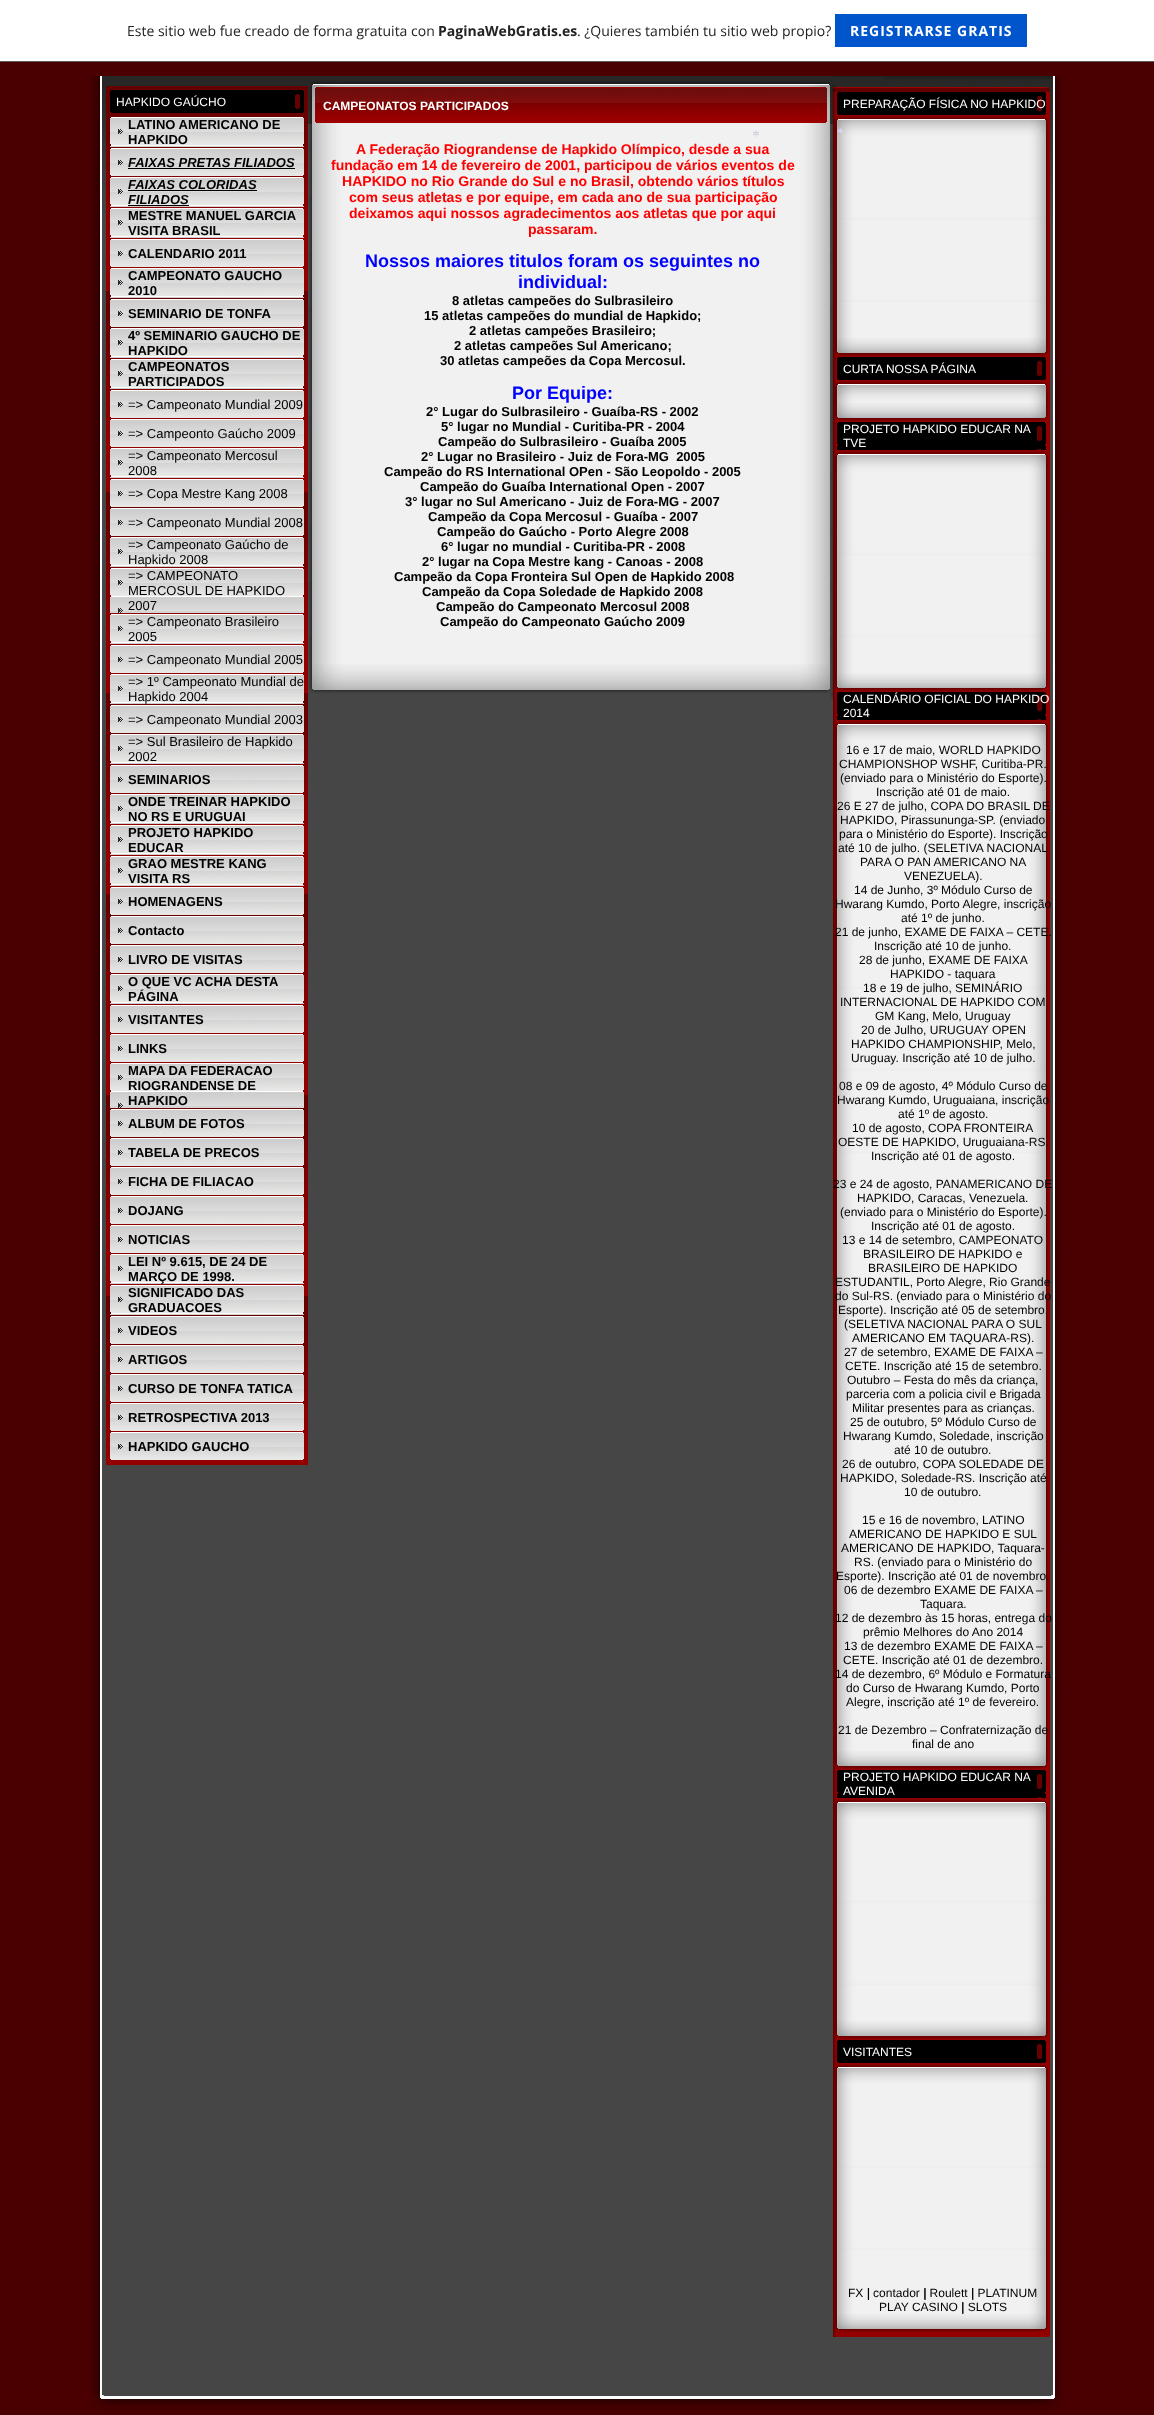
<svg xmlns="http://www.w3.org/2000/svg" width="1154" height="2415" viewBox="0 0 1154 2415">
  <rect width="100%" height="100%" fill="rgb(74,0,1)"/>
  <rect x="0" y="0" width="1154" height="61" fill="rgb(255,255,255)"/>
  <rect x="0" y="61" width="1154" height="1" fill="rgb(90,90,90)"/>
  <text x="127" y="36" font-family="Open Sans" font-size="14" fill="rgb(35,35,35)">Este sitio web fue creado de forma gratuita con</text>
  <text x="438" y="36" font-family="Open Sans" font-size="14" font-weight="bold" fill="rgb(35,35,35)">PaginaWebGratis.es</text>
  <text x="577" y="36" font-family="Open Sans" font-size="14" fill="rgb(35,35,35)">. ¿Quieres también tu sitio web propio?</text>
  <rect x="835" y="14" width="192" height="33" fill="rgb(0,85,204)"/>
  <text x="850" y="36" font-family="Open Sans" font-size="14" font-weight="bold" letter-spacing="1" fill="rgb(255,255,255)">REGISTRARSE GRATIS</text>
  <image x="90" y="76" width="10" height="2319" href="pic1.png"/>
  <image x="100" y="76" width="955" height="2319" href="pic2.png"/>
  <image x="102" y="76" width="206" height="2319" href="pic3.png"/>
  <rect x="106" y="86" width="202" height="4" fill="rgb(100,0,0)"/>
  <image x="106" y="90" width="202" height="1371" href="pic4.png"/>
  <image x="110" y="90" width="194" height="23" href="pic5.png"/>
  <text x="116" y="106" font-family="Liberation Sans" font-size="12" fill="rgb(255,255,255)">HAPKIDO GAÚCHO</text>
  <image x="110" y="117" width="194" height="30" href="pic6.png"/>
  <g font-family="Liberation Sans" font-size="13" font-weight="bold" fill="rgb(0,0,0)">
    <text>
      <tspan x="128" y="129">LATINO AMERICANO DE</tspan>
      <tspan x="128" y="144">HAPKIDO</tspan>
    </text>
  </g>
  <image x="110" y="148" width="194" height="28" href="pic7.png"/>
  <text x="128" y="167" font-family="Liberation Sans" font-size="13" font-weight="bold" font-style="italic" fill="rgb(0,0,0)">FAIXAS PRETAS FILIADOS</text>
  <rect x="128" y="168" width="167" height="1" fill="rgb(0,0,0)"/>
  <image x="110" y="177" width="194" height="30" href="pic8.png"/>
  <text x="128" y="189" font-family="Liberation Sans" font-size="13" font-weight="bold" font-style="italic" fill="rgb(0,0,0)">FAIXAS COLORIDAS</text>
  <rect x="128" y="190" width="129" height="1" fill="rgb(0,0,0)"/>
  <text x="128" y="204" font-family="Liberation Sans" font-size="13" font-weight="bold" font-style="italic" fill="rgb(0,0,0)">FILIADOS</text>
  <rect x="128" y="205" width="61" height="1" fill="rgb(0,0,0)"/>
  <image x="110" y="208" width="194" height="30" href="pic9.png"/>
  <g font-family="Liberation Sans" font-size="13" font-weight="bold" fill="rgb(0,0,0)">
    <text>
      <tspan x="128" y="220">MESTRE MANUEL GARCIA</tspan>
      <tspan x="128" y="235">VISITA BRASIL</tspan>
    </text>
  </g>
  <image x="110" y="239" width="194" height="28" href="pic10.png"/>
  <text x="128" y="258" font-family="Liberation Sans" font-size="13" font-weight="bold" fill="rgb(0,0,0)">CALENDARIO 2011</text>
  <image x="110" y="268" width="194" height="30" href="pic11.png"/>
  <g font-family="Liberation Sans" font-size="13" font-weight="bold" fill="rgb(0,0,0)">
    <text>
      <tspan x="128" y="280">CAMPEONATO GAUCHO</tspan>
      <tspan x="128" y="295">2010</tspan>
    </text>
  </g>
  <image x="110" y="299" width="194" height="28" href="pic12.png"/>
  <text x="128" y="318" font-family="Liberation Sans" font-size="13" font-weight="bold" fill="rgb(0,0,0)">SEMINARIO DE TONFA</text>
  <image x="110" y="328" width="194" height="30" href="pic13.png"/>
  <g font-family="Liberation Sans" font-size="13" font-weight="bold" fill="rgb(0,0,0)">
    <text>
      <tspan x="128" y="340">4º SEMINARIO GAUCHO DE</tspan>
      <tspan x="128" y="355">HAPKIDO</tspan>
    </text>
  </g>
  <image x="110" y="359" width="194" height="30" href="pic14.png"/>
  <g font-family="Liberation Sans" font-size="13" font-weight="bold" fill="rgb(0,0,0)">
    <text>
      <tspan x="128" y="371">CAMPEONATOS</tspan>
      <tspan x="128" y="386">PARTICIPADOS</tspan>
    </text>
  </g>
  <image x="110" y="390" width="194" height="28" href="pic15.png"/>
  <text x="128" y="409" font-family="Liberation Sans" font-size="13" fill="rgb(0,0,0)">=&gt; Campeonato Mundial 2009</text>
  <image x="110" y="419" width="194" height="28" href="pic16.png"/>
  <text x="128" y="438" font-family="Liberation Sans" font-size="13" fill="rgb(0,0,0)">=&gt; Campeonto Gaúcho 2009</text>
  <image x="110" y="448" width="194" height="30" href="pic17.png"/>
  <g font-family="Liberation Sans" font-size="13" fill="rgb(0,0,0)">
    <text>
      <tspan x="128" y="460">=&gt; Campeonato Mercosul</tspan>
      <tspan x="128" y="475">2008</tspan>
    </text>
  </g>
  <image x="110" y="479" width="194" height="28" href="pic18.png"/>
  <text x="128" y="498" font-family="Liberation Sans" font-size="13" fill="rgb(0,0,0)">=&gt; Copa Mestre Kang 2008</text>
  <image x="110" y="508" width="194" height="28" href="pic19.png"/>
  <text x="128" y="527" font-family="Liberation Sans" font-size="13" fill="rgb(0,0,0)">=&gt; Campeonato Mundial 2008</text>
  <image x="110" y="537" width="194" height="30" href="pic20.png"/>
  <g font-family="Liberation Sans" font-size="13" fill="rgb(0,0,0)">
    <text>
      <tspan x="128" y="549">=&gt; Campeonato Gaúcho de</tspan>
      <tspan x="128" y="564">Hapkido 2008</tspan>
    </text>
  </g>
  <image x="110" y="568" width="194" height="45" href="pic21.png"/>
  <g font-family="Liberation Sans" font-size="13" fill="rgb(0,0,0)">
    <text>
      <tspan x="128" y="580">=&gt; CAMPEONATO</tspan>
      <tspan x="128" y="595">MERCOSUL DE HAPKIDO</tspan>
      <tspan x="128" y="610">2007</tspan>
    </text>
  </g>
  <image x="110" y="614" width="194" height="30" href="pic22.png"/>
  <g font-family="Liberation Sans" font-size="13" fill="rgb(0,0,0)">
    <text>
      <tspan x="128" y="626">=&gt; Campeonato Brasileiro</tspan>
      <tspan x="128" y="641">2005</tspan>
    </text>
  </g>
  <image x="110" y="645" width="194" height="28" href="pic23.png"/>
  <text x="128" y="664" font-family="Liberation Sans" font-size="13" fill="rgb(0,0,0)">=&gt; Campeonato Mundial 2005</text>
  <image x="110" y="674" width="194" height="30" href="pic24.png"/>
  <g font-family="Liberation Sans" font-size="13" fill="rgb(0,0,0)">
    <text>
      <tspan x="128" y="686">=&gt; 1º Campeonato Mundial de</tspan>
      <tspan x="128" y="701">Hapkido 2004</tspan>
    </text>
  </g>
  <image x="110" y="705" width="194" height="28" href="pic25.png"/>
  <text x="128" y="724" font-family="Liberation Sans" font-size="13" fill="rgb(0,0,0)">=&gt; Campeonato Mundial 2003</text>
  <image x="110" y="734" width="194" height="30" href="pic26.png"/>
  <g font-family="Liberation Sans" font-size="13" fill="rgb(0,0,0)">
    <text>
      <tspan x="128" y="746">=&gt; Sul Brasileiro de Hapkido</tspan>
      <tspan x="128" y="761">2002</tspan>
    </text>
  </g>
  <image x="110" y="765" width="194" height="28" href="pic27.png"/>
  <text x="128" y="784" font-family="Liberation Sans" font-size="13" font-weight="bold" fill="rgb(0,0,0)">SEMINARIOS</text>
  <image x="110" y="794" width="194" height="30" href="pic28.png"/>
  <g font-family="Liberation Sans" font-size="13" font-weight="bold" fill="rgb(0,0,0)">
    <text>
      <tspan x="128" y="806">ONDE TREINAR HAPKIDO</tspan>
      <tspan x="128" y="821">NO RS E URUGUAI</tspan>
    </text>
  </g>
  <image x="110" y="825" width="194" height="30" href="pic29.png"/>
  <g font-family="Liberation Sans" font-size="13" font-weight="bold" fill="rgb(0,0,0)">
    <text>
      <tspan x="128" y="837">PROJETO HAPKIDO</tspan>
      <tspan x="128" y="852">EDUCAR</tspan>
    </text>
  </g>
  <image x="110" y="856" width="194" height="30" href="pic17.png"/>
  <g font-family="Liberation Sans" font-size="13" font-weight="bold" fill="rgb(0,0,0)">
    <text>
      <tspan x="128" y="868">GRAO MESTRE KANG</tspan>
      <tspan x="128" y="883">VISITA RS</tspan>
    </text>
  </g>
  <image x="110" y="887" width="194" height="28" href="pic30.png"/>
  <text x="128" y="906" font-family="Liberation Sans" font-size="13" font-weight="bold" fill="rgb(0,0,0)">HOMENAGENS</text>
  <image x="110" y="916" width="194" height="28" href="pic31.png"/>
  <text x="128" y="935" font-family="Liberation Sans" font-size="13" font-weight="bold" fill="rgb(0,0,0)">Contacto</text>
  <image x="110" y="945" width="194" height="28" href="pic32.png"/>
  <text x="128" y="964" font-family="Liberation Sans" font-size="13" font-weight="bold" fill="rgb(0,0,0)">LIVRO DE VISITAS</text>
  <image x="110" y="974" width="194" height="30" href="pic33.png"/>
  <g font-family="Liberation Sans" font-size="13" font-weight="bold" fill="rgb(0,0,0)">
    <text>
      <tspan x="128" y="986">O QUE VC ACHA DESTA</tspan>
      <tspan x="128" y="1001">PÁGINA</tspan>
    </text>
  </g>
  <image x="110" y="1005" width="194" height="28" href="pic34.png"/>
  <text x="128" y="1024" font-family="Liberation Sans" font-size="13" font-weight="bold" fill="rgb(0,0,0)">VISITANTES</text>
  <image x="110" y="1034" width="194" height="28" href="pic35.png"/>
  <text x="128" y="1053" font-family="Liberation Sans" font-size="13" font-weight="bold" fill="rgb(0,0,0)">LINKS</text>
  <image x="110" y="1063" width="194" height="45" href="pic36.png"/>
  <g font-family="Liberation Sans" font-size="13" font-weight="bold" fill="rgb(0,0,0)">
    <text>
      <tspan x="128" y="1075">MAPA DA FEDERACAO</tspan>
      <tspan x="128" y="1090">RIOGRANDENSE DE</tspan>
      <tspan x="128" y="1105">HAPKIDO</tspan>
    </text>
  </g>
  <image x="110" y="1109" width="194" height="28" href="pic37.png"/>
  <text x="128" y="1128" font-family="Liberation Sans" font-size="13" font-weight="bold" fill="rgb(0,0,0)">ALBUM DE FOTOS</text>
  <image x="110" y="1138" width="194" height="28" href="pic38.png"/>
  <text x="128" y="1157" font-family="Liberation Sans" font-size="13" font-weight="bold" fill="rgb(0,0,0)">TABELA DE PRECOS</text>
  <image x="110" y="1167" width="194" height="28" href="pic27.png"/>
  <text x="128" y="1186" font-family="Liberation Sans" font-size="13" font-weight="bold" fill="rgb(0,0,0)">FICHA DE FILIACAO</text>
  <image x="110" y="1196" width="194" height="28" href="pic39.png"/>
  <text x="128" y="1215" font-family="Liberation Sans" font-size="13" font-weight="bold" fill="rgb(0,0,0)">DOJANG</text>
  <image x="110" y="1225" width="194" height="28" href="pic40.png"/>
  <text x="128" y="1244" font-family="Liberation Sans" font-size="13" font-weight="bold" fill="rgb(0,0,0)">NOTICIAS</text>
  <image x="110" y="1254" width="194" height="30" href="pic17.png"/>
  <g font-family="Liberation Sans" font-size="13" font-weight="bold" fill="rgb(0,0,0)">
    <text>
      <tspan x="128" y="1266">LEI Nº 9.615, DE 24 DE</tspan>
      <tspan x="128" y="1281">MARÇO DE 1998.</tspan>
    </text>
  </g>
  <image x="110" y="1285" width="194" height="30" href="pic41.png"/>
  <g font-family="Liberation Sans" font-size="13" font-weight="bold" fill="rgb(0,0,0)">
    <text>
      <tspan x="128" y="1297">SIGNIFICADO DAS</tspan>
      <tspan x="128" y="1312">GRADUACOES</tspan>
    </text>
  </g>
  <image x="110" y="1316" width="194" height="28" href="pic42.png"/>
  <text x="128" y="1335" font-family="Liberation Sans" font-size="13" font-weight="bold" fill="rgb(0,0,0)">VIDEOS</text>
  <image x="110" y="1345" width="194" height="28" href="pic43.png"/>
  <text x="128" y="1364" font-family="Liberation Sans" font-size="13" font-weight="bold" fill="rgb(0,0,0)">ARTIGOS</text>
  <image x="110" y="1374" width="194" height="28" href="pic44.png"/>
  <text x="128" y="1393" font-family="Liberation Sans" font-size="13" font-weight="bold" fill="rgb(0,0,0)">CURSO DE TONFA TATICA</text>
  <image x="110" y="1403" width="194" height="28" href="pic45.png"/>
  <text x="128" y="1422" font-family="Liberation Sans" font-size="13" font-weight="bold" fill="rgb(0,0,0)">RETROSPECTIVA 2013</text>
  <image x="110" y="1432" width="194" height="28" href="pic46.png"/>
  <text x="128" y="1451" font-family="Liberation Sans" font-size="13" font-weight="bold" fill="rgb(0,0,0)">HAPKIDO GAUCHO</text>
  <rect x="106" y="1461" width="202" height="4" fill="rgb(148,0,0)"/>
  <image x="308" y="76" width="525" height="11" href="pic47.png"/>
  <image x="310" y="81" width="520" height="6" href="pic48.png"/>
  <image x="308" y="124" width="525" height="575" href="pic49.png"/>
  <image x="308" y="87" width="525" height="37" href="pic50.png"/>
  <text x="323" y="110" font-family="Liberation Sans" font-size="12" font-weight="bold" fill="rgb(255,255,255)">CAMPEONATOS PARTICIPADOS</text>
  <g font-family="Liberation Sans" font-size="14.05" font-weight="bold" fill="rgb(255,0,0)">
    <text x="356" y="154">A Federação Riograndense de Hapkido Olímpico, desde a sua</text>
    <text x="331" y="170">fundação em 14 de fevereiro de 2001, participou de vários eventos de</text>
    <text x="342" y="186">HAPKIDO no Rio Grande do Sul e no Brasil, obtendo vários títulos</text>
    <text>
      <tspan x="349" y="202">com seus atletas e por equipe, em cada ano de sua participação</tspan>
      <tspan x="349" y="218">deixamos aqui nossos agradecimentos aos atletas que por aqui</tspan>
    </text>
    <text x="528" y="234">passaram.</text>
  </g>
  <g font-family="Liberation Sans" font-size="18" font-weight="bold" fill="rgb(0,0,255)">
    <text x="365" y="267">Nossos maiores titulos foram os seguintes no</text>
    <text x="518" y="288">individual:</text>
  </g>
  <g font-family="Liberation Sans" font-size="13" font-weight="bold" fill="rgb(0,0,0)">
    <text x="452" y="305">8 atletas campeões do Sulbrasileiro</text>
    <text x="424" y="320">15 atletas campeões do mundial de Hapkido;</text>
    <text x="469" y="335">2 atletas campeões Brasileiro;</text>
    <text x="454" y="350">2 atletas campeões Sul Americano;</text>
    <text x="440" y="365">30 atletas campeões da Copa Mercosul.</text>
  </g>
  <text x="512" y="399" font-family="Liberation Sans" font-size="18" font-weight="bold" fill="rgb(0,0,255)">Por Equipe:</text>
  <g font-family="Liberation Sans" font-size="13" font-weight="bold" fill="rgb(0,0,0)">
    <text x="426" y="416">2° Lugar do Sulbrasileiro - Guaíba-RS - 2002</text>
    <text x="441" y="431">5° lugar no Mundial - Curitiba-PR - 2004</text>
    <text x="438" y="446">Campeão do Sulbrasileiro - Guaíba 2005</text>
    <text x="421" y="461" xml:space="preserve">2° Lugar no Brasileiro - Juiz de Fora-MG  2005</text>
    <text x="384" y="476">Campeão do RS International OPen - São Leopoldo - 2005</text>
    <text x="420" y="491">Campeão do Guaíba International Open - 2007</text>
    <text x="405" y="506">3° lugar no Sul Americano - Juiz de Fora-MG - 2007</text>
    <text x="428" y="521">Campeão da Copa Mercosul - Guaíba - 2007</text>
    <text x="437" y="536">Campeão do Gaúcho - Porto Alegre 2008</text>
    <text x="441" y="551">6° lugar no mundial - Curitiba-PR - 2008</text>
    <text x="422" y="566">2° lugar na Copa Mestre kang - Canoas - 2008</text>
    <text x="394" y="581">Campeão da Copa Fronteira Sul Open de Hapkido 2008</text>
    <text x="422" y="596">Campeão da Copa Soledade de Hapkido 2008</text>
    <text x="436" y="611">Campeão do Campeonato Mercosul 2008</text>
    <text x="440" y="626">Campeão do Campeonato Gaúcho 2009</text>
  </g>
  <image x="308" y="664" width="522" height="35" href="pic51.png"/>
  <image x="833" y="76" width="220" height="2319" href="pic52.png"/>
  <image x="833" y="76" width="217" height="2257" href="pic53.png"/>
  <image x="833" y="92" width="217" height="23" href="pic54.png"/>
  <text x="843" y="108" font-family="Liberation Sans" font-size="12" fill="rgb(255,255,255)">PREPARAÇÃO FÍSICA NO HAPKIDO</text>
  <image x="833" y="115" width="217" height="23" href="pic55.png"/>
  <image x="833" y="138" width="217" height="200" href="pic56.png"/>
  <image x="834" y="338" width="216" height="19" href="pic57.png"/>
  <image x="837" y="357" width="213" height="23" href="pic58.png"/>
  <text x="843" y="373" font-family="Liberation Sans" font-size="12" fill="rgb(255,255,255)">CURTA NOSSA PÁGINA</text>
  <image x="834" y="380" width="216" height="23" href="pic59.png"/>
  <image x="834" y="403" width="216" height="19" href="pic57.png"/>
  <image x="837" y="422" width="213" height="28" href="pic60.png"/>
  <g font-family="Liberation Sans" font-size="12" fill="rgb(255,255,255)">
    <text>
      <tspan x="843" y="433">PROJETO HAPKIDO EDUCAR NA</tspan>
      <tspan x="843" y="447">TVE</tspan>
    </text>
  </g>
  <image x="834" y="450" width="216" height="23" href="pic59.png"/>
  <image x="834" y="473" width="216" height="200" href="pic61.png"/>
  <image x="834" y="673" width="216" height="19" href="pic57.png"/>
  <image x="837" y="692" width="213" height="28" href="pic60.png"/>
  <g font-family="Liberation Sans" font-size="12" fill="rgb(255,255,255)">
    <text>
      <tspan x="843" y="703">CALENDÁRIO OFICIAL DO HAPKIDO</tspan>
      <tspan x="843" y="717">2014</tspan>
    </text>
  </g>
  <image x="834" y="720" width="216" height="23" href="pic59.png"/>
  <image x="834" y="743" width="216" height="1008" href="pic62.png"/>
  <g font-family="Liberation Sans" font-size="12" fill="rgb(0,0,0)">
    <text x="846" y="754">16 e 17 de maio, WORLD HAPKIDO</text>
    <text x="839" y="768">CHAMPIONSHOP WSHF, Curitiba-PR.</text>
    <text x="840" y="782">(enviado para o Ministério do Esporte).</text>
    <text x="876" y="796">Inscrição até 01 de maio.</text>
    <text x="837" y="810">26 E 27 de julho, COPA DO BRASIL DE</text>
    <text x="840" y="824">HAPKIDO, Pirassununga-SP. (enviado</text>
    <text x="839" y="838">para o Ministério do Esporte). Inscrição</text>
    <text x="838" y="852">até 10 de julho. (SELETIVA NACIONAL</text>
    <text x="860" y="866">PARA O PAN AMERICANO NA</text>
    <text x="904" y="880">VENEZUELA).</text>
    <text x="854" y="894">14 de Junho, 3º Módulo Curso de</text>
    <text x="835" y="908">Hwarang Kumdo, Porto Alegre, inscrição</text>
    <text x="901" y="922">até 1º de junho.</text>
    <text x="835" y="936">21 de junho, EXAME DE FAIXA – CETE.</text>
    <text x="874" y="950">Inscrição até 10 de junho.</text>
    <text x="859" y="964">28 de junho, EXAME DE FAIXA</text>
    <text x="890" y="978">HAPKIDO - taquara</text>
    <text x="863" y="992">18 e 19 de julho, SEMINÁRIO</text>
    <text x="840" y="1006">INTERNACIONAL DE HAPKIDO COM</text>
    <text x="875" y="1020">GM Kang, Melo, Uruguay</text>
    <text x="861" y="1034">20 de Julho, URUGUAY OPEN</text>
    <text>
      <tspan x="851" y="1048">HAPKIDO CHAMPIONSHIP, Melo,</tspan>
      <tspan x="851" y="1062">Uruguay. Inscrição até 10 de julho.</tspan>
    </text>
    <text x="839" y="1090">08 e 09 de agosto, 4º Módulo Curso de</text>
    <text x="837" y="1104">Hwarang Kumdo, Uruguaiana, inscrição</text>
    <text x="898" y="1118">até 1º de agosto.</text>
    <text x="852" y="1132">10 de agosto, COPA FRONTEIRA</text>
    <text x="838" y="1146">OESTE DE HAPKIDO, Uruguaiana-RS.</text>
    <text x="871" y="1160">Inscrição até 01 de agosto.</text>
    <text x="833" y="1188">23 e 24 de agosto, PANAMERICANO DE</text>
    <text x="857" y="1202">HAPKIDO, Caracas, Venezuela.</text>
    <text x="840" y="1216">(enviado para o Ministério do Esporte).</text>
    <text x="871" y="1230">Inscrição até 01 de agosto.</text>
    <text x="842" y="1244">13 e 14 de setembro, CAMPEONATO</text>
    <text x="863" y="1258">BRASILEIRO DE HAPKIDO e</text>
    <text x="868" y="1272">BRASILEIRO DE HAPKIDO</text>
    <text>
      <tspan x="835" y="1286">ESTUDANTIL, Porto Alegre, Rio Grande</tspan>
      <tspan x="835" y="1300">do Sul-RS. (enviado para o Ministério do</tspan>
    </text>
    <text x="838" y="1314">Esporte). Inscrição até 05 de setembro.</text>
    <text x="844" y="1328">(SELETIVA NACIONAL PARA O SUL</text>
    <text x="852" y="1342">AMERICANO EM TAQUARA-RS).</text>
    <text x="844" y="1356">27 de setembro, EXAME DE FAIXA –</text>
    <text x="845" y="1370">CETE. Inscrição até 15 de setembro.</text>
    <text x="847" y="1384">Outubro – Festa do mês da criança,</text>
    <text x="846" y="1398">parceria com a policia civil e Brigada</text>
    <text x="852" y="1412">Militar presentes para as crianças.</text>
    <text x="850" y="1426">25 de outubro, 5º Módulo Curso de</text>
    <text x="843" y="1440">Hwarang Kumdo, Soledade, inscrição</text>
    <text x="894" y="1454">até 10 de outubro.</text>
    <text x="842" y="1468">26 de outubro, COPA SOLEDADE DE</text>
    <text x="840" y="1482">HAPKIDO, Soledade-RS. Inscrição até</text>
    <text x="904" y="1496">10 de outubro.</text>
    <text x="862" y="1524">15 e 16 de novembro, LATINO</text>
    <text x="849" y="1538">AMERICANO DE HAPKIDO E SUL</text>
    <text x="841" y="1552">AMERICANO DE HAPKIDO, Taquara-</text>
    <text x="854" y="1566">RS. (enviado para o Ministério do</text>
    <text x="836" y="1580">Esporte). Inscrição até 01 de novembro.</text>
    <text x="844" y="1594">06 de dezembro EXAME DE FAIXA –</text>
    <text x="920" y="1608">Taquara.</text>
    <text x="835" y="1622">12 de dezembro às 15 horas, entrega do</text>
    <text x="863" y="1636">prêmio Melhores do Ano 2014</text>
    <text x="844" y="1650">13 de dezembro EXAME DE FAIXA –</text>
    <text x="843" y="1664">CETE. Inscrição até 01 de dezembro.</text>
    <text x="835" y="1678">14 de dezembro, 6º Módulo e Formatura</text>
    <text>
      <tspan x="846" y="1692">do Curso de Hwarang Kumdo, Porto</tspan>
      <tspan x="846" y="1706">Alegre, inscrição até 1º de fevereiro.</tspan>
    </text>
    <text x="838" y="1734">21 de Dezembro – Confraternização de</text>
    <text x="912" y="1748">final de ano</text>
  </g>
  <image x="834" y="1751" width="216" height="19" href="pic57.png"/>
  <image x="837" y="1770" width="213" height="28" href="pic60.png"/>
  <g font-family="Liberation Sans" font-size="12" fill="rgb(255,255,255)">
    <text>
      <tspan x="843" y="1781">PROJETO HAPKIDO EDUCAR NA</tspan>
      <tspan x="843" y="1795">AVENIDA</tspan>
    </text>
  </g>
  <image x="834" y="1798" width="216" height="23" href="pic59.png"/>
  <image x="834" y="1821" width="216" height="200" href="pic61.png"/>
  <image x="834" y="2021" width="216" height="19" href="pic57.png"/>
  <image x="837" y="2040" width="213" height="23" href="pic58.png"/>
  <text x="843" y="2056" font-family="Liberation Sans" font-size="12" fill="rgb(255,255,255)">VISITANTES</text>
  <image x="834" y="2063" width="216" height="23" href="pic59.png"/>
  <image x="834" y="2086" width="216" height="228" href="pic63.png"/>
  <image x="868" y="2288" width="106" height="26" href="pic64.png"/>
  <g font-family="Liberation Sans" font-size="12" fill="rgb(0,0,0)">
    <text x="848" y="2297">FX | contador | Roulett | PLATINUM</text>
    <text x="879" y="2311">PLAY CASINO | SLOTS</text>
  </g>
  <image x="834" y="2314" width="216" height="19" href="pic57.png"/>
  <image x="833" y="2333" width="217" height="4" href="pic65.png"/>
  <image x="1055" y="76" width="7" height="2319" href="pic66.png"/>
  <image x="90" y="2395" width="976" height="20" href="pic67.png"/>
  <text x="752" y="141" font-family="Liberation Serif" font-size="16" fill="rgb(204,204,221)">*</text>
  <text x="837" y="137" font-family="Liberation Serif" font-size="13" fill="rgb(221,221,255)">*</text>
</svg>
